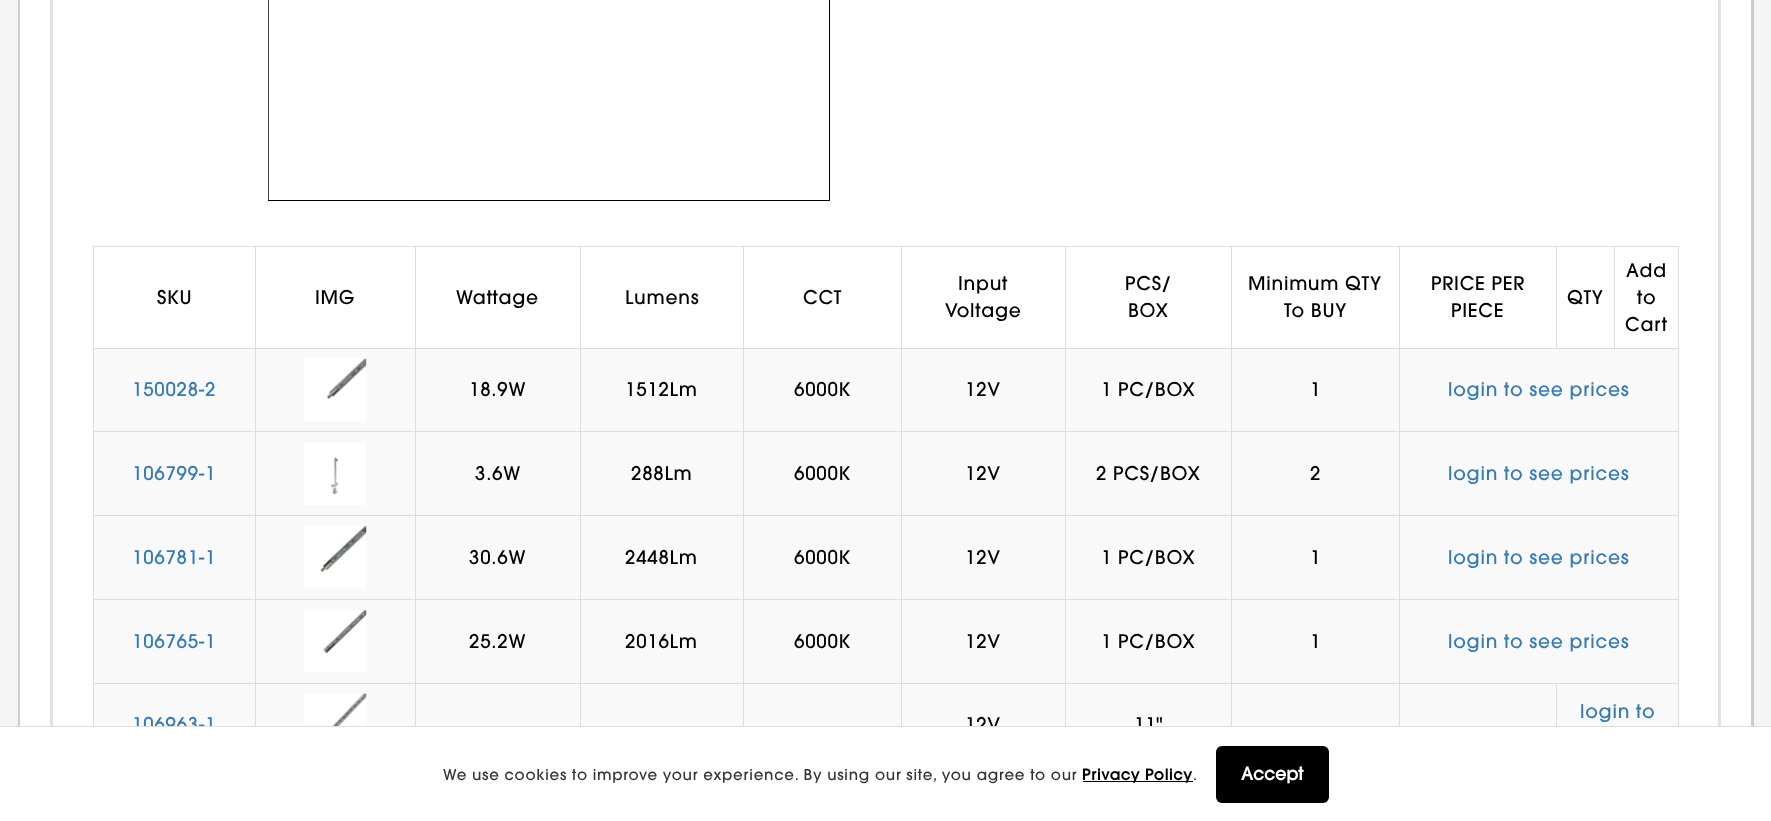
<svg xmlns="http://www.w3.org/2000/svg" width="1771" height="821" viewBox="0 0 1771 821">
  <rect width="100%" height="100%" fill="rgb(245,245,245)"/>
  <rect x="1751" y="0" width="3" height="726" fill="rgb(204,204,204)"/>
  <rect x="18" y="0" width="2" height="726" fill="rgb(204,204,204)"/>
  <rect x="20" y="0" width="1731" height="726" fill="rgb(255,255,255)"/>
  <rect x="51.5" y="-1.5" width="1668" height="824" fill="none" stroke="rgb(226,226,226)" stroke-width="3"/>
  <rect x="268.5" y="-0.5" width="561" height="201" fill="none" stroke="rgb(0,0,0)"/>
  <rect x="268" y="0" width="1" height="200" fill="rgb(64,64,64)"/>
  <rect x="1614" y="246" width="65" height="1" fill="rgb(221,221,221)"/>
  <rect x="1399" y="348" width="280" height="1" fill="rgb(221,221,221)"/>
  <rect x="1614" y="246" width="1" height="103" fill="rgb(221,221,221)"/>
  <rect x="1556" y="246" width="59" height="1" fill="rgb(221,221,221)"/>
  <rect x="1556" y="246" width="1" height="103" fill="rgb(221,221,221)"/>
  <rect x="1399" y="246" width="159" height="1" fill="rgb(221,221,221)"/>
  <rect x="94" y="349" width="1584" height="82" fill="rgb(249,249,249)"/>
  <rect x="94" y="432" width="1584" height="83" fill="rgb(249,249,249)"/>
  <rect x="1399" y="431" width="280" height="1" fill="rgb(221,221,221)"/>
  <rect x="1399" y="515" width="280" height="1" fill="rgb(221,221,221)"/>
  <rect x="94" y="516" width="1584" height="83" fill="rgb(249,249,249)"/>
  <rect x="1399" y="599" width="280" height="1" fill="rgb(221,221,221)"/>
  <rect x="94" y="600" width="1584" height="83" fill="rgb(249,249,249)"/>
  <rect x="1556" y="683" width="123" height="1" fill="rgb(221,221,221)"/>
  <rect x="94" y="684" width="1584" height="42" fill="rgb(249,249,249)"/>
  <rect x="1556" y="683" width="1" height="43" fill="rgb(221,221,221)"/>
  <rect x="1399" y="683" width="159" height="1" fill="rgb(221,221,221)"/>
  <rect x="1399" y="683" width="1" height="43" fill="rgb(221,221,221)"/>
  <rect x="1231" y="683" width="169" height="1" fill="rgb(221,221,221)"/>
  <rect x="1399" y="599" width="1" height="85" fill="rgb(221,221,221)"/>
  <rect x="1231" y="599" width="169" height="1" fill="rgb(221,221,221)"/>
  <rect x="1399" y="515" width="1" height="85" fill="rgb(221,221,221)"/>
  <rect x="1231" y="515" width="169" height="1" fill="rgb(221,221,221)"/>
  <rect x="1399" y="431" width="1" height="85" fill="rgb(221,221,221)"/>
  <rect x="1231" y="431" width="169" height="1" fill="rgb(221,221,221)"/>
  <rect x="1399" y="348" width="1" height="85" fill="rgb(221,221,221)"/>
  <rect x="1231" y="348" width="169" height="1" fill="rgb(221,221,221)"/>
  <rect x="1399" y="246" width="1" height="103" fill="rgb(221,221,221)"/>
  <rect x="1231" y="246" width="169" height="1" fill="rgb(221,221,221)"/>
  <rect x="1231" y="683" width="1" height="43" fill="rgb(221,221,221)"/>
  <rect x="1065" y="683" width="168" height="1" fill="rgb(221,221,221)"/>
  <rect x="1231" y="599" width="1" height="85" fill="rgb(221,221,221)"/>
  <rect x="1065" y="599" width="168" height="1" fill="rgb(221,221,221)"/>
  <rect x="1231" y="515" width="1" height="85" fill="rgb(221,221,221)"/>
  <rect x="1065" y="515" width="168" height="1" fill="rgb(221,221,221)"/>
  <rect x="1231" y="431" width="1" height="85" fill="rgb(221,221,221)"/>
  <rect x="1065" y="431" width="168" height="1" fill="rgb(221,221,221)"/>
  <rect x="1231" y="348" width="1" height="85" fill="rgb(221,221,221)"/>
  <rect x="1065" y="348" width="168" height="1" fill="rgb(221,221,221)"/>
  <rect x="1231" y="246" width="1" height="103" fill="rgb(221,221,221)"/>
  <rect x="1065" y="246" width="168" height="1" fill="rgb(221,221,221)"/>
  <rect x="1065" y="683" width="1" height="43" fill="rgb(221,221,221)"/>
  <rect x="901" y="683" width="165" height="1" fill="rgb(221,221,221)"/>
  <rect x="1065" y="599" width="1" height="85" fill="rgb(221,221,221)"/>
  <rect x="901" y="599" width="165" height="1" fill="rgb(221,221,221)"/>
  <rect x="1065" y="515" width="1" height="85" fill="rgb(221,221,221)"/>
  <rect x="901" y="515" width="165" height="1" fill="rgb(221,221,221)"/>
  <rect x="1065" y="431" width="1" height="85" fill="rgb(221,221,221)"/>
  <rect x="901" y="431" width="165" height="1" fill="rgb(221,221,221)"/>
  <rect x="1065" y="348" width="1" height="85" fill="rgb(221,221,221)"/>
  <rect x="901" y="348" width="165" height="1" fill="rgb(221,221,221)"/>
  <rect x="1065" y="246" width="1" height="103" fill="rgb(221,221,221)"/>
  <rect x="901" y="246" width="165" height="1" fill="rgb(221,221,221)"/>
  <rect x="901" y="683" width="1" height="43" fill="rgb(221,221,221)"/>
  <rect x="743" y="683" width="160" height="1" fill="rgb(221,221,221)"/>
  <rect x="901" y="599" width="1" height="85" fill="rgb(221,221,221)"/>
  <rect x="743" y="599" width="160" height="1" fill="rgb(221,221,221)"/>
  <rect x="901" y="515" width="1" height="85" fill="rgb(221,221,221)"/>
  <rect x="743" y="515" width="160" height="1" fill="rgb(221,221,221)"/>
  <rect x="901" y="431" width="1" height="85" fill="rgb(221,221,221)"/>
  <rect x="743" y="431" width="160" height="1" fill="rgb(221,221,221)"/>
  <rect x="901" y="348" width="1" height="85" fill="rgb(221,221,221)"/>
  <rect x="743" y="348" width="160" height="1" fill="rgb(221,221,221)"/>
  <rect x="901" y="246" width="1" height="103" fill="rgb(221,221,221)"/>
  <rect x="743" y="246" width="160" height="1" fill="rgb(221,221,221)"/>
  <rect x="743" y="683" width="1" height="43" fill="rgb(221,221,221)"/>
  <rect x="580" y="683" width="164" height="1" fill="rgb(221,221,221)"/>
  <rect x="743" y="599" width="1" height="85" fill="rgb(221,221,221)"/>
  <rect x="580" y="599" width="164" height="1" fill="rgb(221,221,221)"/>
  <rect x="743" y="515" width="1" height="85" fill="rgb(221,221,221)"/>
  <rect x="580" y="515" width="164" height="1" fill="rgb(221,221,221)"/>
  <rect x="743" y="431" width="1" height="85" fill="rgb(221,221,221)"/>
  <rect x="580" y="431" width="164" height="1" fill="rgb(221,221,221)"/>
  <rect x="743" y="348" width="1" height="85" fill="rgb(221,221,221)"/>
  <rect x="580" y="348" width="164" height="1" fill="rgb(221,221,221)"/>
  <rect x="743" y="246" width="1" height="103" fill="rgb(221,221,221)"/>
  <rect x="580" y="246" width="164" height="1" fill="rgb(221,221,221)"/>
  <rect x="580" y="683" width="1" height="43" fill="rgb(221,221,221)"/>
  <rect x="415" y="683" width="166" height="1" fill="rgb(221,221,221)"/>
  <rect x="580" y="599" width="1" height="85" fill="rgb(221,221,221)"/>
  <rect x="415" y="599" width="166" height="1" fill="rgb(221,221,221)"/>
  <rect x="580" y="515" width="1" height="85" fill="rgb(221,221,221)"/>
  <rect x="415" y="515" width="166" height="1" fill="rgb(221,221,221)"/>
  <rect x="580" y="431" width="1" height="85" fill="rgb(221,221,221)"/>
  <rect x="415" y="431" width="166" height="1" fill="rgb(221,221,221)"/>
  <rect x="580" y="348" width="1" height="85" fill="rgb(221,221,221)"/>
  <rect x="415" y="348" width="166" height="1" fill="rgb(221,221,221)"/>
  <rect x="580" y="246" width="1" height="103" fill="rgb(221,221,221)"/>
  <rect x="415" y="246" width="166" height="1" fill="rgb(221,221,221)"/>
  <rect x="415" y="683" width="1" height="43" fill="rgb(221,221,221)"/>
  <rect x="255" y="683" width="161" height="1" fill="rgb(221,221,221)"/>
  <rect x="415" y="599" width="1" height="85" fill="rgb(221,221,221)"/>
  <rect x="255" y="599" width="161" height="1" fill="rgb(221,221,221)"/>
  <rect x="415" y="515" width="1" height="85" fill="rgb(221,221,221)"/>
  <rect x="255" y="515" width="161" height="1" fill="rgb(221,221,221)"/>
  <rect x="415" y="431" width="1" height="85" fill="rgb(221,221,221)"/>
  <rect x="255" y="431" width="161" height="1" fill="rgb(221,221,221)"/>
  <rect x="415" y="348" width="1" height="85" fill="rgb(221,221,221)"/>
  <rect x="255" y="348" width="161" height="1" fill="rgb(221,221,221)"/>
  <rect x="415" y="246" width="1" height="103" fill="rgb(221,221,221)"/>
  <rect x="255" y="246" width="161" height="1" fill="rgb(221,221,221)"/>
  <rect x="255" y="683" width="1" height="43" fill="rgb(221,221,221)"/>
  <rect x="93" y="683" width="163" height="1" fill="rgb(221,221,221)"/>
  <rect x="255" y="599" width="1" height="85" fill="rgb(221,221,221)"/>
  <rect x="93" y="599" width="163" height="1" fill="rgb(221,221,221)"/>
  <rect x="255" y="515" width="1" height="85" fill="rgb(221,221,221)"/>
  <rect x="93" y="515" width="163" height="1" fill="rgb(221,221,221)"/>
  <rect x="255" y="431" width="1" height="85" fill="rgb(221,221,221)"/>
  <rect x="93" y="431" width="163" height="1" fill="rgb(221,221,221)"/>
  <rect x="255" y="348" width="1" height="85" fill="rgb(221,221,221)"/>
  <rect x="93" y="348" width="163" height="1" fill="rgb(221,221,221)"/>
  <rect x="255" y="246" width="1" height="103" fill="rgb(221,221,221)"/>
  <rect x="93" y="246" width="163" height="1" fill="rgb(221,221,221)"/>
  <rect x="93" y="683" width="1" height="43" fill="rgb(221,221,221)"/>
  <rect x="93" y="599" width="1" height="85" fill="rgb(221,221,221)"/>
  <rect x="93" y="515" width="1" height="85" fill="rgb(221,221,221)"/>
  <rect x="93" y="431" width="1" height="85" fill="rgb(221,221,221)"/>
  <rect x="93" y="348" width="1" height="85" fill="rgb(221,221,221)"/>
  <rect x="93" y="246" width="1" height="103" fill="rgb(221,221,221)"/>
  <g font-family="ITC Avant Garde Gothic" font-size="18.75" font-weight="500" letter-spacing="0.75" fill="rgb(0,0,0)">
    <text x="157" y="304">SKU</text>
    <text x="315" y="304">IMG</text>
    <text x="456" y="304">Wattage</text>
    <text x="625" y="304">Lumens</text>
    <text x="803" y="304">CCT</text>
    <text x="958" y="290">Input</text>
    <text x="945" y="317">Voltage</text>
    <text x="1125" y="290">PCS/</text>
    <text x="1128" y="317">BOX</text>
    <text x="1248" y="290">Minimum QTY</text>
    <text x="1284" y="317">To BUY</text>
    <text x="1431" y="290">PRICE PER</text>
    <text x="1451" y="317">PIECE</text>
    <text x="1567" y="304">QTY</text>
  </g>
  <rect x="1678" y="683" width="1" height="43" fill="rgb(221,221,221)"/>
  <rect x="1678" y="599" width="1" height="85" fill="rgb(221,221,221)"/>
  <rect x="1678" y="515" width="1" height="85" fill="rgb(221,221,221)"/>
  <rect x="1678" y="431" width="1" height="85" fill="rgb(221,221,221)"/>
  <rect x="1678" y="348" width="1" height="85" fill="rgb(221,221,221)"/>
  <rect x="1678" y="246" width="1" height="103" fill="rgb(221,221,221)"/>
  <g font-family="ITC Avant Garde Gothic" font-size="18.75" font-weight="500" letter-spacing="0.75" fill="rgb(0,0,0)">
    <text x="1626" y="277">Add</text>
    <text x="1637" y="304">to</text>
    <text x="1625" y="331">Cart</text>
  </g>
  <text x="132" y="396" font-family="ITC Avant Garde Gothic" font-size="18.75" font-weight="500" letter-spacing="0.75" fill="rgb(51,122,183)">150028-2</text>
  <image x="304" y="358" width="63" height="63" href="pic1.png"/>
  <g font-family="ITC Avant Garde Gothic" font-size="18.75" font-weight="500" letter-spacing="0.75" fill="rgb(0,0,0)">
    <text x="469" y="396">18.9W</text>
    <text x="625" y="396">1512Lm</text>
    <text x="794" y="396">6000K</text>
    <text x="965" y="396">12V</text>
    <text x="1101" y="396">1 PC/BOX</text>
    <text x="1310" y="396">1</text>
  </g>
  <g font-family="ITC Avant Garde Gothic" font-size="18.75" font-weight="500" letter-spacing="0.75" fill="rgb(51,122,183)">
    <text x="1448" y="396">login to see prices</text>
    <text x="132" y="480">106799-1</text>
  </g>
  <image x="304" y="443" width="62" height="62" href="pic2.png"/>
  <g font-family="ITC Avant Garde Gothic" font-size="18.75" font-weight="500" letter-spacing="0.75" fill="rgb(0,0,0)">
    <text x="475" y="480">3.6W</text>
    <text x="631" y="480">288Lm</text>
    <text x="794" y="480">6000K</text>
    <text x="965" y="480">12V</text>
    <text x="1096" y="480">2 PCS/BOX</text>
    <text x="1310" y="480">2</text>
  </g>
  <g font-family="ITC Avant Garde Gothic" font-size="18.75" font-weight="500" letter-spacing="0.75" fill="rgb(51,122,183)">
    <text x="1448" y="480">login to see prices</text>
    <text x="132" y="564">106781-1</text>
  </g>
  <image x="304" y="526" width="63" height="63" href="pic3.png"/>
  <g font-family="ITC Avant Garde Gothic" font-size="18.75" font-weight="500" letter-spacing="0.75" fill="rgb(0,0,0)">
    <text x="469" y="564">30.6W</text>
    <text x="625" y="564">2448Lm</text>
    <text x="794" y="564">6000K</text>
    <text x="965" y="564">12V</text>
    <text x="1101" y="564">1 PC/BOX</text>
    <text x="1310" y="564">1</text>
  </g>
  <g font-family="ITC Avant Garde Gothic" font-size="18.75" font-weight="500" letter-spacing="0.75" fill="rgb(51,122,183)">
    <text x="1448" y="564">login to see prices</text>
    <text x="132" y="648">106765-1</text>
  </g>
  <image x="304" y="610" width="63" height="62" href="pic4.png"/>
  <g font-family="ITC Avant Garde Gothic" font-size="18.75" font-weight="500" letter-spacing="0.75" fill="rgb(0,0,0)">
    <text x="469" y="648">25.2W</text>
    <text x="625" y="648">2016Lm</text>
    <text x="794" y="648">6000K</text>
    <text x="965" y="648">12V</text>
    <text x="1101" y="648">1 PC/BOX</text>
    <text x="1310" y="648">1</text>
  </g>
  <g font-family="ITC Avant Garde Gothic" font-size="18.75" font-weight="500" letter-spacing="0.75" fill="rgb(51,122,183)">
    <text x="1448" y="648">login to see prices</text>
    <text x="132" y="731">106963-1</text>
  </g>
  <image x="304" y="693" width="63" height="33" href="pic5.png"/>
  <g font-family="ITC Avant Garde Gothic" font-size="18.75" font-weight="500" letter-spacing="0.75" fill="rgb(0,0,0)">
    <text x="965" y="731">12V</text>
    <text x="1134" y="731">11"</text>
  </g>
  <text x="1580" y="718" font-family="ITC Avant Garde Gothic" font-size="18.75" font-weight="500" letter-spacing="0.75" fill="rgb(51,122,183)">login to</text>
  <rect x="0" y="727" width="1771" height="94" fill="rgb(255,255,255)"/>
  <rect x="0" y="726" width="1771" height="1" fill="rgb(221,221,221)"/>
  <text x="443" y="780" font-family="ITC Avant Garde Gothic" font-size="15" font-weight="500" letter-spacing="0.75" fill="rgb(51,51,51)">We use cookies to improve your experience. By using our site, you agree to our</text>
  <rect x="1083" y="781" width="110" height="1" fill="rgb(0,0,0)"/>
  <text x="1082" y="780" font-family="ITC Avant Garde Gothic" font-size="15" font-weight="bold" letter-spacing="0.75" fill="rgb(0,0,0)">Privacy Policy</text>
  <text x="1193" y="780" font-family="ITC Avant Garde Gothic" font-size="15" font-weight="500" letter-spacing="0.75" fill="rgb(51,51,51)">.</text>
  <rect x="1216" y="746" width="113" height="57" rx="6" fill="rgb(0,0,0)"/>
  <text x="1241" y="780" font-family="ITC Avant Garde Gothic" font-size="17.5" font-weight="bold" fill="rgb(255,255,255)">Accept</text>
</svg>
